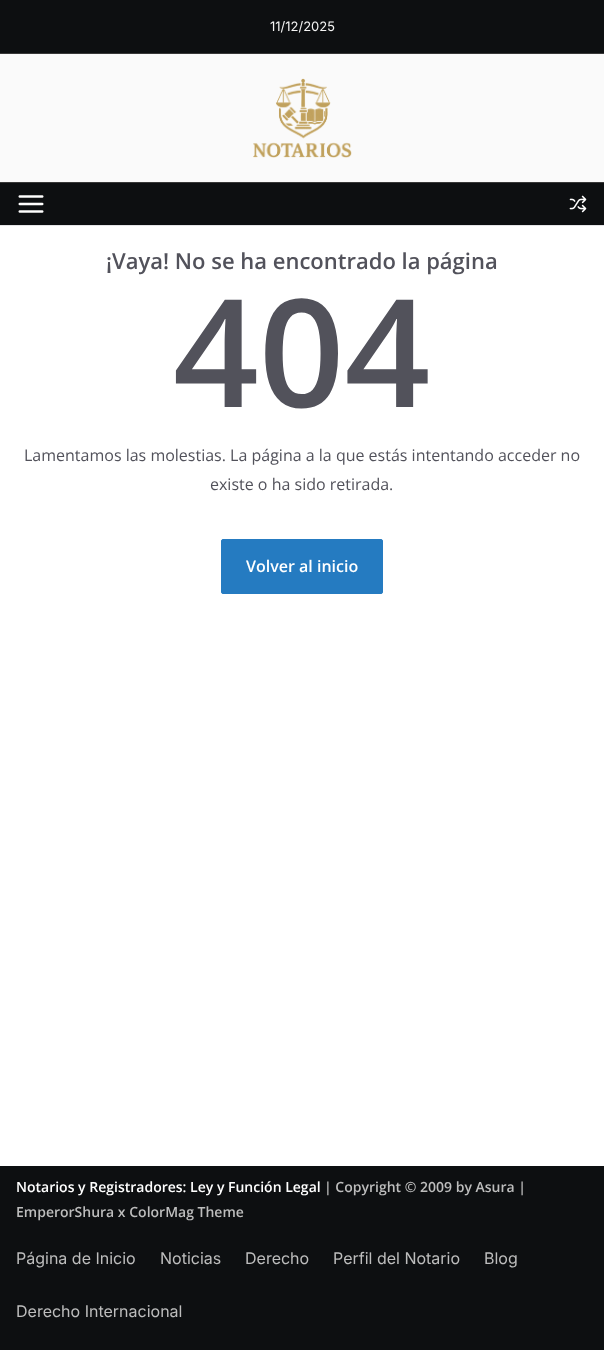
<svg xmlns="http://www.w3.org/2000/svg" width="604" height="1350" viewBox="0 0 604 1350">
  <rect width="100%" height="100%" fill="rgb(255,255,255)"/>
  <rect x="0" y="225" width="604" height="1" fill="rgb(228,228,231)"/>
  <rect x="0" y="0" width="604" height="53" fill="rgb(13,15,17)"/>
  <rect x="0" y="53" width="604" height="1" fill="rgb(56,56,56)"/>
  <text x="270" y="31" font-family="Inter" font-size="13" fill="rgb(244,244,244)">11/12/2025</text>
  <rect x="0" y="54" width="604" height="128" fill="rgb(250,250,250)"/>
  <image x="253" y="78" width="99" height="80" href="pic1.png"/>
  <rect x="0" y="183" width="604" height="42" fill="rgb(13,15,17)"/>
  <rect x="0" y="182" width="604" height="1" fill="rgb(56,56,56)"/>
  <image x="18" y="195" width="26" height="18" href="pic2.png"/>
  <image x="569" y="195" width="18" height="18" href="pic3.png"/>
  <text x="106" y="269" font-family="Open Sans" font-size="22" font-weight="600" fill="rgb(82,82,91)">¡Vaya! No se ha encontrado la página</text>
  <text x="173" y="407" font-family="Open Sans" font-size="150" font-weight="600" fill="rgb(82,82,91)">404</text>
  <g font-family="Open Sans" font-size="16" fill="rgb(82,82,91)">
    <text x="24" y="461">Lamentamos las molestias. La página a la que estás intentando acceder no</text>
    <text x="210" y="490">existe o ha sido retirada.</text>
  </g>
  <rect x="221.5" y="539.5" width="161" height="54" rx="1.5" fill="rgb(37,123,193)" stroke="rgb(37,123,193)"/>
  <text x="246" y="572" font-family="Open Sans" font-size="16" font-weight="600" fill="rgb(255,255,255)">Volver al inicio</text>
  <rect x="0" y="1166" width="604" height="184" fill="rgb(13,15,17)"/>
  <text x="16" y="1192" font-family="Open Sans" font-size="14" font-weight="600" fill="rgb(255,255,255)">Notarios y Registradores: Ley y Función Legal</text>
  <g font-family="Open Sans" font-size="14" font-weight="600" fill="rgb(189,189,189)">
    <text x="324" y="1192">| Copyright © 2009 by Asura |</text>
    <text x="16" y="1217">EmperorShura x ColorMag Theme</text>
  </g>
  <g font-family="Inter" font-size="16" fill="rgb(189,189,189)">
    <text x="16" y="1264">Página de Inicio</text>
    <text x="160" y="1264">Noticias</text>
    <text x="245" y="1264">Derecho</text>
    <text x="333" y="1264">Perfil del Notario</text>
    <text x="484" y="1264">Blog</text>
    <text x="16" y="1317">Derecho Internacional</text>
  </g>
</svg>
